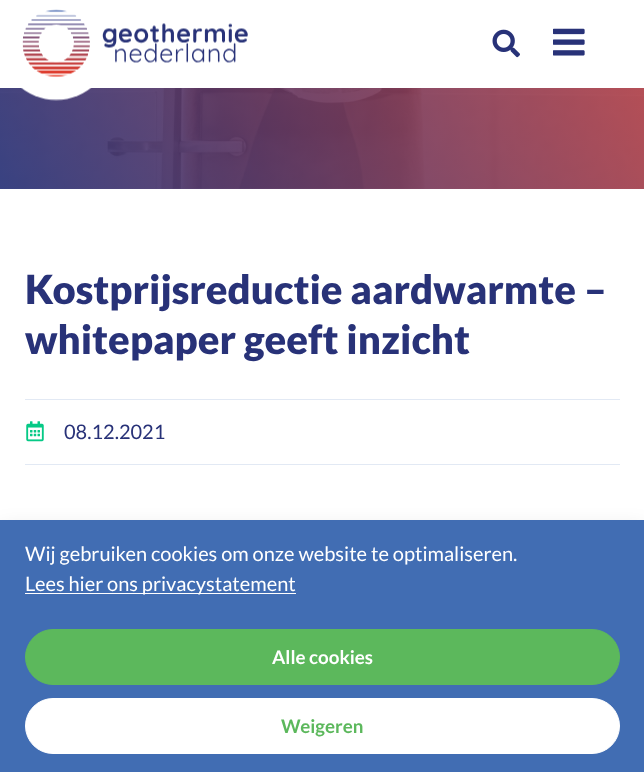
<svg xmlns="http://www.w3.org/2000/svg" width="644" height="772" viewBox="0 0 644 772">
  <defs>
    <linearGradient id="g1" gradientUnits="userSpaceOnUse" x1="18" y1="219" x2="627" y2="-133"><stop offset="0" stop-color="rgb(40,50,120)" stop-opacity="0.9"/><stop offset="1" stop-color="rgb(199,67,65)" stop-opacity="0.9"/></linearGradient>
  </defs>
  <rect width="100%" height="100%" fill="rgb(255,255,255)"/>
  <image x="0" y="88" width="644" height="101" href="pic4.png"/>
  <rect x="0" y="88" width="644" height="101" fill="url(#g1)"/>
  <image x="21" y="9" width="227" height="92" href="pic1.png"/>
  <image x="492" y="29" width="28" height="29" href="pic2.png"/>
  <image x="553" y="28" width="32" height="28" href="pic3.png"/>
  <g font-family="Lato" font-size="40" font-weight="900" fill="rgb(40,50,120)">
    <text>
      <tspan x="25" y="304">Kostprijsreductie aardwarmte –</tspan>
      <tspan x="25" y="354">whitepaper geeft inzicht</tspan>
    </text>
  </g>
  <rect x="25" y="399" width="595" height="1" fill="rgb(226,233,244)"/>
  <rect x="25" y="464" width="595" height="1" fill="rgb(226,233,244)"/>
  <image x="26" y="421" width="18" height="21" href="pic5.png"/>
  <text x="64" y="439" font-family="Lato" font-size="20" fill="rgb(40,50,120)">08.12.2021</text>
  <rect x="0" y="533" width="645" height="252" fill="rgba(0,0,0,0.19)" filter="blur(12.5px)"/>
  <rect x="0" y="520" width="644" height="252" fill="rgb(65,109,179)"/>
  <text x="25" y="561" font-family="Lato" font-size="20" fill="rgb(255,255,255)">Wij gebruiken cookies om onze website te optimaliseren.</text>
  <rect x="25" y="593" width="271" height="1" fill="rgb(255,255,255)"/>
  <text x="25" y="591" font-family="Lato" font-size="20" fill="rgb(255,255,255)">Lees hier ons privacystatement</text>
  <rect x="25.5" y="629.5" width="594" height="55" rx="27.5" fill="rgb(92,184,92)" stroke="rgb(92,184,92)"/>
  <text x="272" y="664" font-family="Lato" font-size="18.75" font-weight="bold" fill="rgb(255,255,255)">Alle cookies</text>
  <rect x="25.5" y="698.5" width="594" height="55" rx="27.5" fill="rgb(255,255,255)" stroke="rgb(255,255,255)"/>
  <text x="281" y="733" font-family="Lato" font-size="18.75" font-weight="bold" fill="rgb(92,184,92)">Weigeren</text>
</svg>
